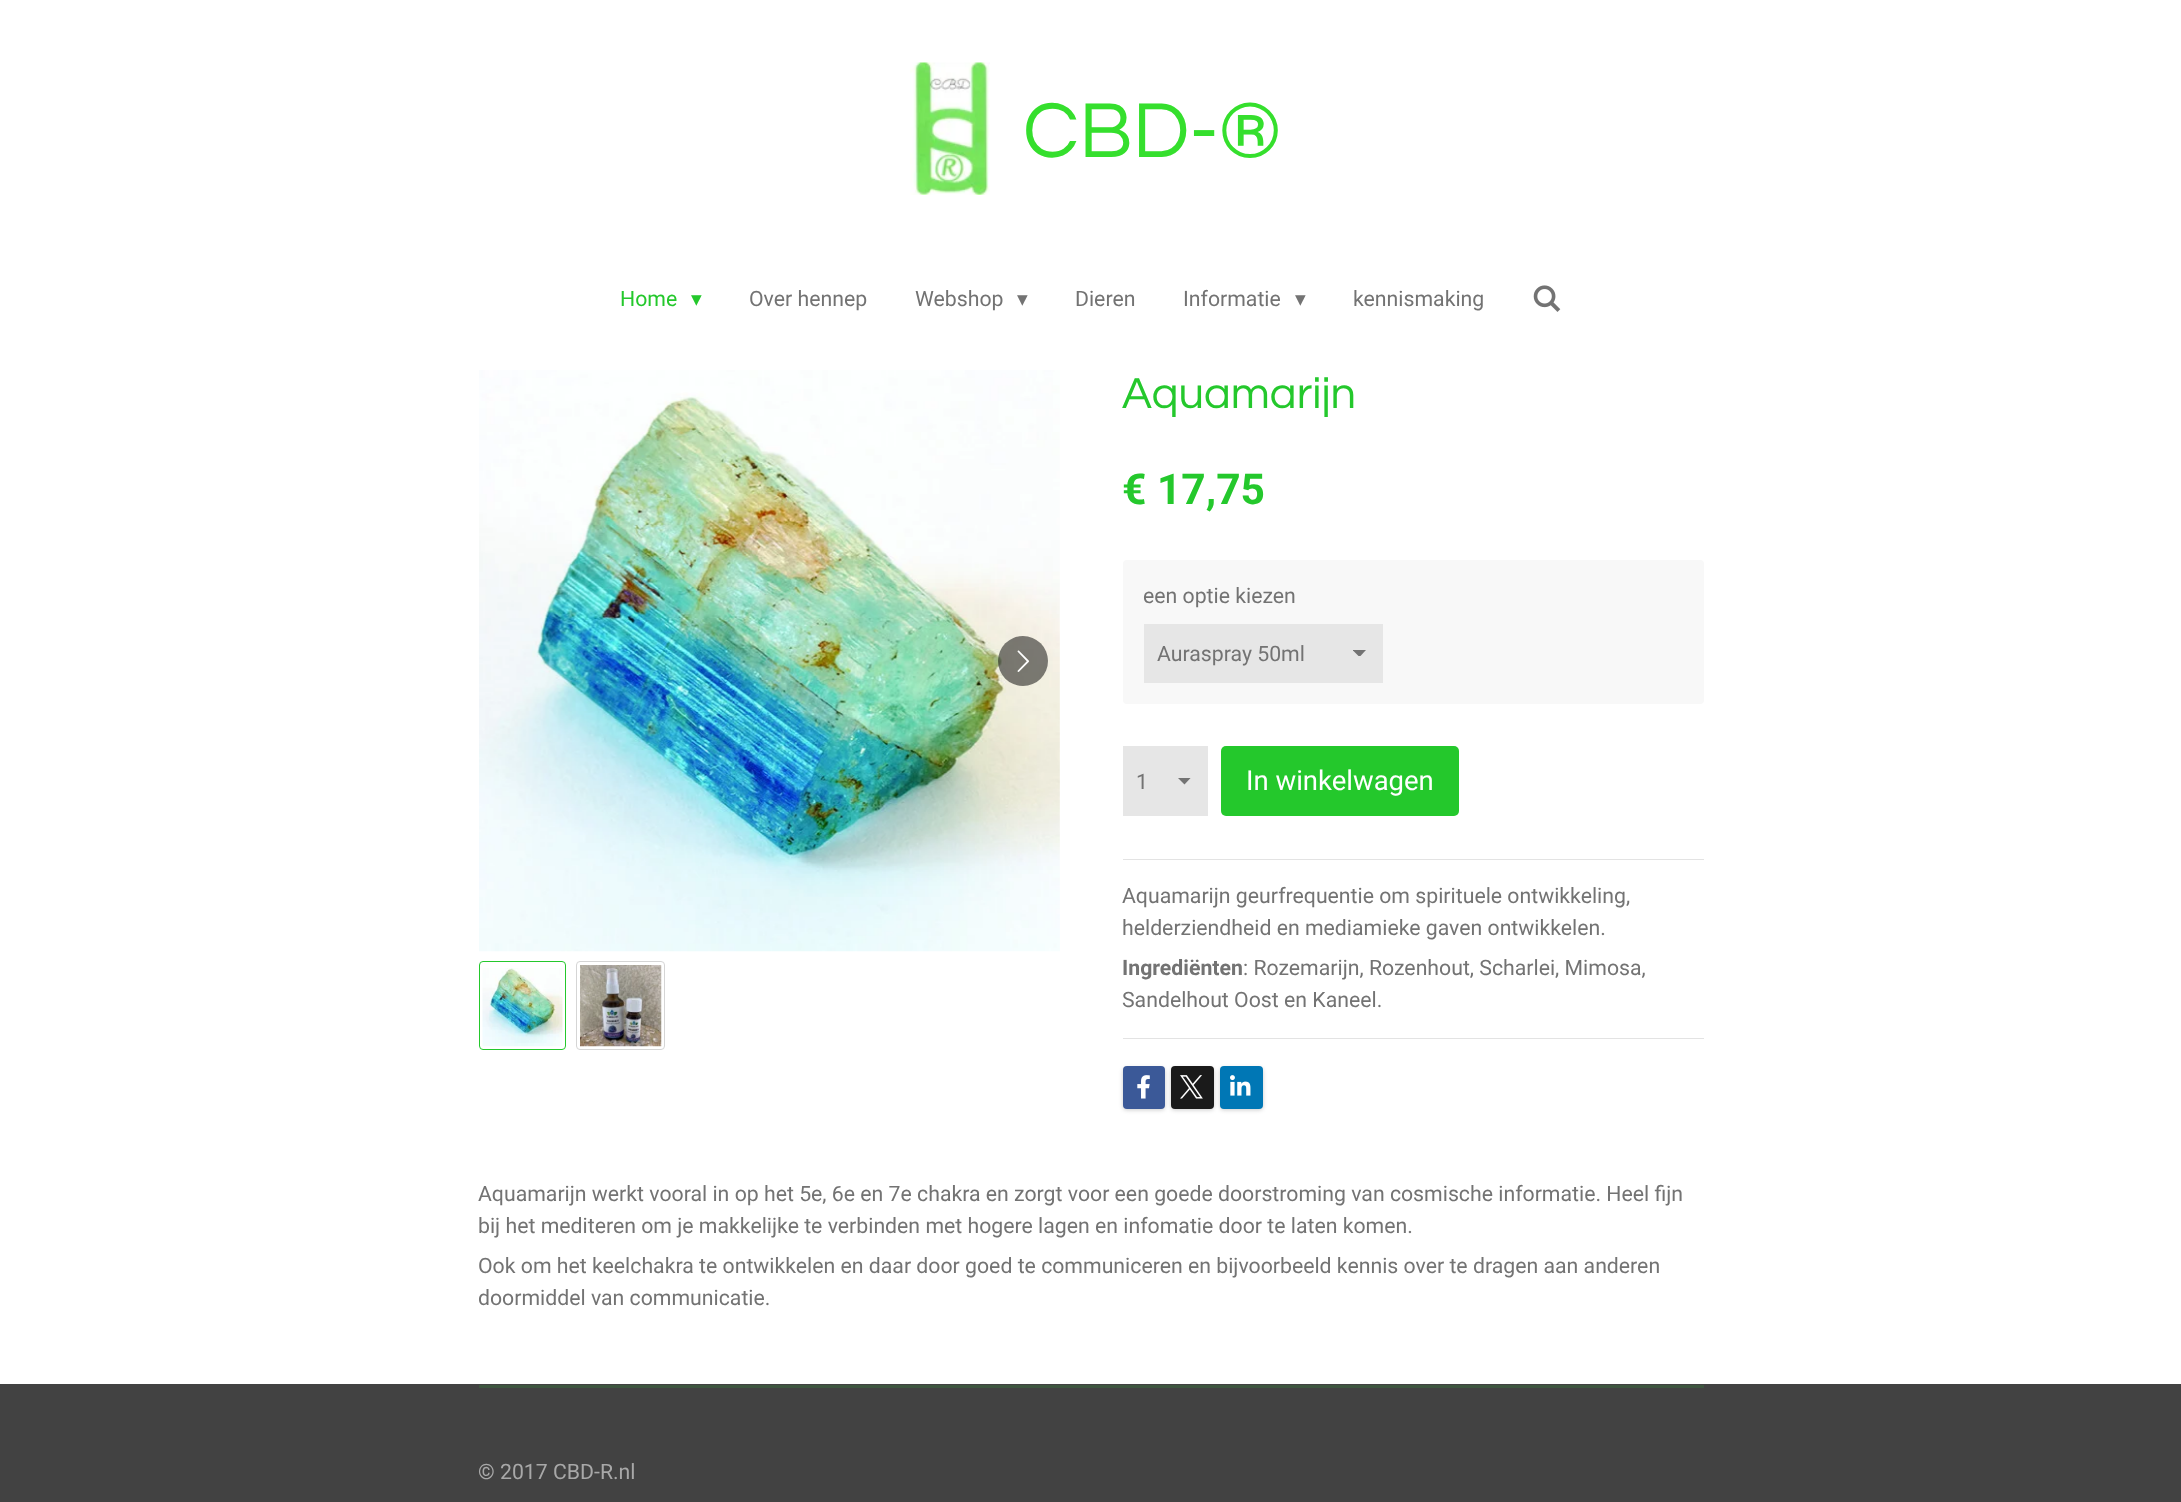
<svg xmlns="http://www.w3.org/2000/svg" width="2181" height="1502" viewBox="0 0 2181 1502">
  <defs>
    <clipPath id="clip1"><rect x="1353" y="650" width="13" height="6"/></clipPath>
    <clipPath id="clip2"><rect x="1178" y="778" width="13" height="7"/></clipPath>
  </defs>
  <rect width="100%" height="100%" fill="rgb(255,255,255)"/>
  <image x="910" y="62" width="80" height="133" href="pic1.png"/>
  <text x="1023" y="157" font-family="Questrial" font-size="81" fill="rgb(53,223,45)">CBD-®</text>
  <text x="620" y="306" font-family="Roboto" font-size="21.25" fill="rgb(36,200,44)">Home</text>
  <text x="691" y="306" font-family="DejaVu Sans" font-size="21.25" fill="rgb(36,200,44)">▾</text>
  <g font-family="Roboto" font-size="21.25" fill="rgb(115,115,115)">
    <text x="749" y="306">Over hennep</text>
    <text x="915" y="306">Webshop</text>
  </g>
  <text x="1017" y="306" font-family="DejaVu Sans" font-size="21.25" fill="rgb(115,115,115)">▾</text>
  <g font-family="Roboto" font-size="21.25" fill="rgb(115,115,115)">
    <text x="1075" y="306">Dieren</text>
    <text x="1183" y="306">Informatie</text>
  </g>
  <text x="1295" y="306" font-family="DejaVu Sans" font-size="21.25" fill="rgb(115,115,115)">▾</text>
  <text x="1353" y="306" font-family="Roboto" font-size="21.25" fill="rgb(115,115,115)">kennismaking</text>
  <image x="1533" y="285" width="28" height="27" href="pic2.png"/>
  <image x="479" y="370" width="581" height="582" href="pic3.png"/>
  <circle cx="1023" cy="661" r="25" fill="rgba(0,0,0,0.5)"/>
  <image x="1017" y="650" width="13" height="22" href="pic4.png"/>
  <rect x="479.5" y="961.5" width="86" height="88" rx="3.5" fill="none" stroke="rgb(36,200,44)"/>
  <image x="482" y="968" width="81" height="79" href="pic5.png"/>
  <rect x="576.5" y="961.5" width="88" height="88" rx="3.5" fill="none" stroke="rgb(213,213,213)"/>
  <image x="580" y="965" width="82" height="82" href="pic6.png"/>
  <text x="1122" y="408" font-family="Questrial" font-size="45" fill="rgb(36,200,44)">Aquamarijn</text>
  <text x="1122" y="504" font-family="Roboto" font-size="42.5" font-weight="bold" fill="rgb(36,200,44)">€ 17,75</text>
  <rect x="1123" y="560" width="581" height="144" rx="4" fill="rgb(248,248,248)"/>
  <text x="1143" y="603" font-family="Roboto" font-size="21.25" fill="rgb(115,115,115)">een optie kiezen</text>
  <rect x="1144" y="624" width="239" height="59" fill="rgb(230,230,230)"/>
  <g clip-path="url(#clip1)">
    <path d="M1359.5 657L1352.5 650H1366Z" fill="rgb(115,115,115)"/>
  </g>
  <text x="1157" y="661" font-family="Roboto" font-size="21.25" fill="rgb(115,115,115)">Auraspray 50ml</text>
  <rect x="1123" y="746" width="85" height="70" fill="rgb(230,230,230)"/>
  <g clip-path="url(#clip2)">
    <path d="M1184.5 784.5L1177.5 777.5H1191Z" fill="rgb(115,115,115)"/>
  </g>
  <text x="1136" y="789" font-family="Roboto" font-size="21.25" fill="rgb(115,115,115)">1</text>
  <rect x="1221" y="746" width="238" height="70" rx="5" fill="rgb(36,200,44)"/>
  <text x="1246" y="790" font-family="Roboto" font-size="27.5" fill="rgb(255,255,255)">In winkelwagen</text>
  <rect x="1123" y="859" width="581" height="1" fill="rgb(227,227,227)"/>
  <g font-family="Roboto" font-size="21.25" fill="rgb(115,115,115)">
    <text>
      <tspan x="1122" y="903">Aquamarijn geurfrequentie om spirituele ontwikkeling,</tspan>
      <tspan x="1122" y="935">helderziendheid en mediamieke gaven ontwikkelen.</tspan>
    </text>
  </g>
  <text x="1122" y="975" font-family="Roboto" font-size="21.25" font-weight="bold" fill="rgb(115,115,115)">Ingrediënten</text>
  <g font-family="Roboto" font-size="21.25" fill="rgb(115,115,115)">
    <text x="1243" y="975">: Rozemarijn, Rozenhout, Scharlei, Mimosa,</text>
    <text x="1122" y="1007">Sandelhout Oost en Kaneel.</text>
  </g>
  <rect x="1123" y="1038" width="581" height="1" fill="rgb(227,227,227)"/>
  <rect x="1123" y="1068" width="42" height="42" rx="4" fill="rgba(0,0,0,0.2)" filter="blur(2px)"/>
  <rect x="1123" y="1066" width="42" height="43" rx="4" fill="rgb(59,89,152)"/>
  <image x="1137" y="1075" width="13" height="24" href="pic7.png"/>
  <rect x="1171" y="1068" width="43" height="42" rx="4" fill="rgba(0,0,0,0.2)" filter="blur(2px)"/>
  <rect x="1171" y="1066" width="43" height="43" rx="4" fill="rgb(26,26,26)"/>
  <image x="1180" y="1075" width="23" height="24" href="pic8.png"/>
  <rect x="1220" y="1068" width="43" height="42" rx="4" fill="rgba(0,0,0,0.2)" filter="blur(2px)"/>
  <rect x="1220" y="1066" width="43" height="43" rx="4" fill="rgb(0,119,181)"/>
  <image x="1230" y="1075" width="21" height="21" href="pic9.png"/>
  <g font-family="Roboto" font-size="21.25" fill="rgb(115,115,115)">
    <text>
      <tspan x="478" y="1201">Aquamarijn werkt vooral in op het 5e, 6e en 7e chakra en zorgt voor een goede doorstroming van cosmische informatie. Heel fijn</tspan>
      <tspan x="478" y="1233">bij het mediteren om je makkelijke te verbinden met hogere lagen en infomatie door te laten komen.</tspan>
      <tspan x="478" y="1273">Ook om het keelchakra te ontwikkelen en daar door goed te communiceren en bijvoorbeeld kennis over te dragen aan anderen</tspan>
      <tspan x="478" y="1305">doormiddel van communicatie.</tspan>
    </text>
  </g>
  <rect x="0" y="1384" width="2181" height="118" fill="rgb(66,66,66)"/>
  <rect x="479" y="1385" width="1225" height="3" fill="rgb(62,86,63)"/>
  <text x="478" y="1479" font-family="Roboto" font-size="21.25" fill="rgb(168,168,168)">© 2017 CBD-R.nl</text>
</svg>
